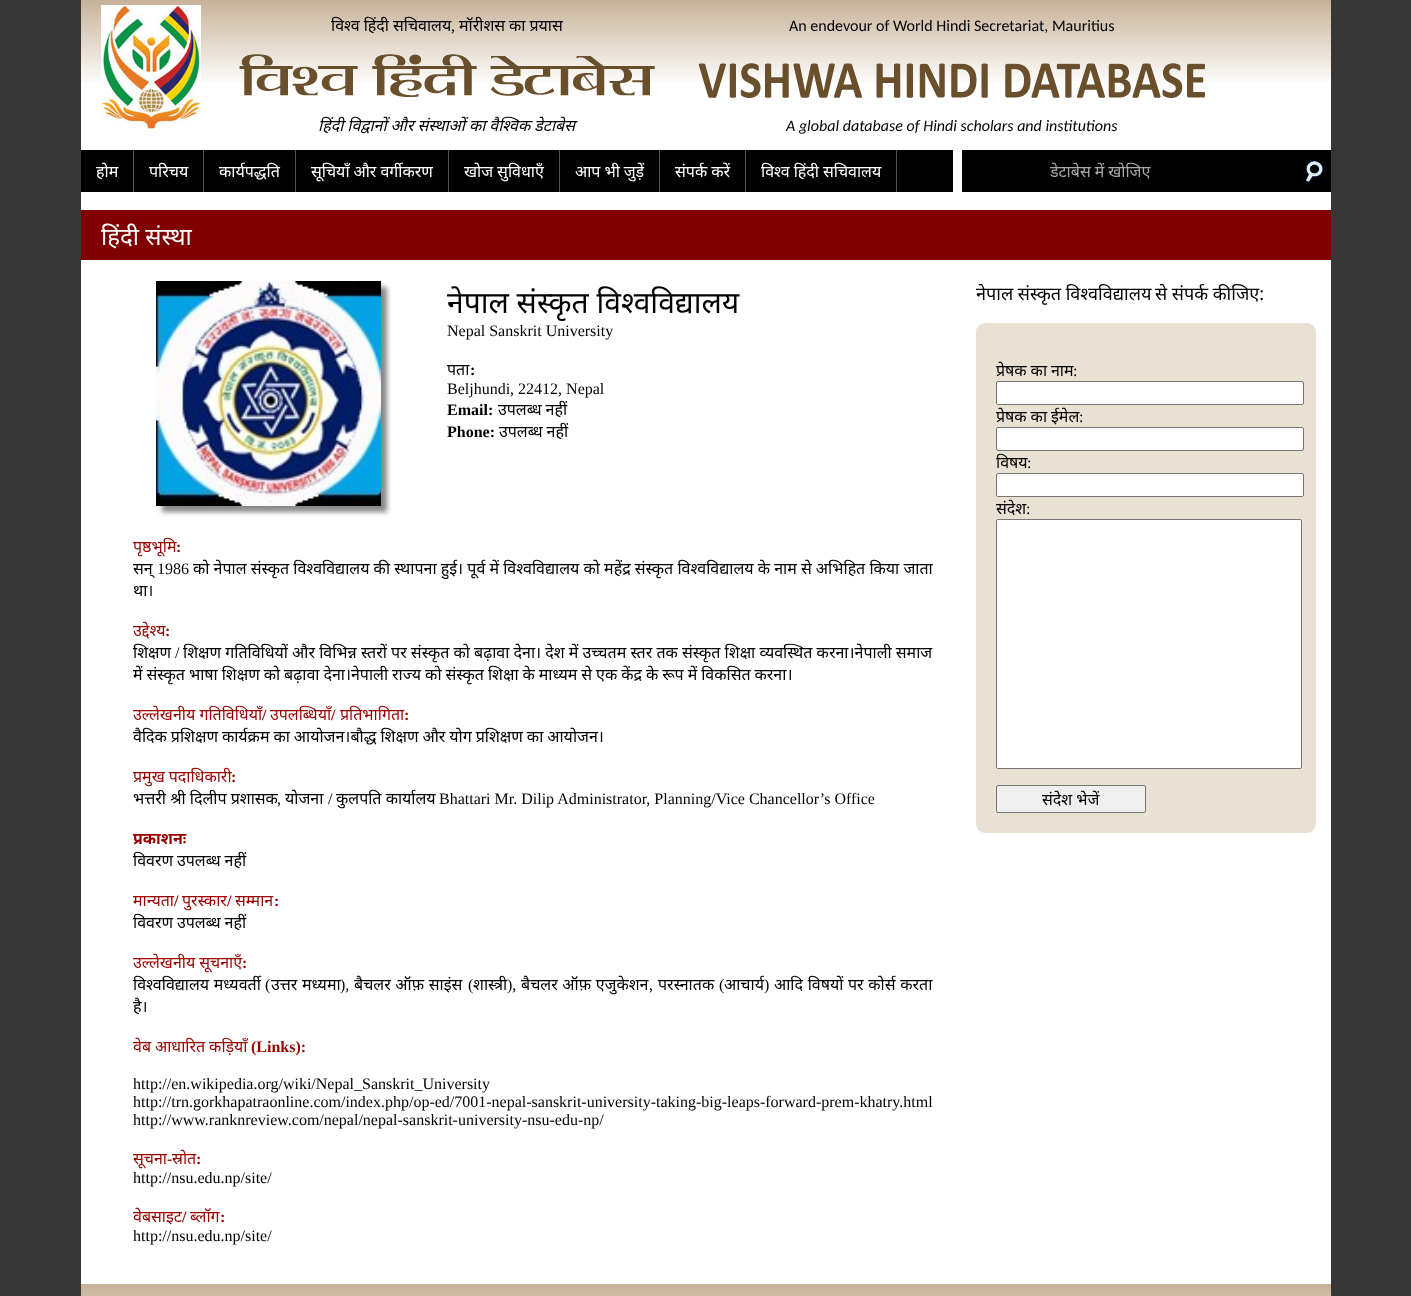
<svg xmlns="http://www.w3.org/2000/svg" width="1411" height="1296" viewBox="0 0 1411 1296">
  <rect width="100%" height="100%" fill="rgb(55,55,55)"/>
  <rect x="81" y="82" width="1250" height="1202" fill="rgb(255,255,255)"/>
  <image x="81" y="0" width="1250" height="82" href="pic1.png"/>
  <image x="101" y="5" width="100" height="124" href="pic2.png"/>
  <text x="331" y="31" word-spacing="-0.2" font-family="Noto Sans" font-size="16" fill="rgb(0,0,0)">विश्व हिंदी सचिवालय</text>
  <text x="451" y="31" font-family="Liberation Serif" font-size="16" fill="rgb(0,0,0)">,</text>
  <text x="459" y="31" word-spacing="-0.2" font-family="Noto Sans" font-size="16" fill="rgb(0,0,0)">मॉरीशस का प्रयास</text>
  <text x="789" y="31" font-family="Carlito" font-size="16" fill="rgb(0,0,0)">An endevour of World Hindi Secretariat, Mauritius</text>
  <image x="239" y="54" width="416" height="43" href="pic3.png"/>
  <image x="698" y="63" width="507" height="35" href="pic4.png"/>
  <text x="318" y="131" word-spacing="-0.2" font-family="Noto Sans" font-size="16" font-style="italic" fill="rgb(0,0,0)">हिंदी विद्वानों और संस्थाओं का वैश्विक डेटाबेस</text>
  <text x="786" y="131" font-family="Carlito" font-size="16" font-style="italic" fill="rgb(0,0,0)">A global database of Hindi scholars and institutions</text>
  <rect x="962" y="150" width="369" height="42" fill="rgb(0,0,0)"/>
  <rect x="81" y="150" width="872" height="42" fill="rgb(0,0,0)"/>
  <rect x="133" y="150" width="1" height="42" fill="rgb(85,85,85)"/>
  <text x="96" y="177" font-family="Noto Sans" font-size="16" fill="rgb(255,255,255)">होम</text>
  <rect x="203" y="150" width="1" height="42" fill="rgb(85,85,85)"/>
  <text x="149" y="177" font-family="Noto Sans" font-size="16" fill="rgb(255,255,255)">परिचय</text>
  <rect x="295" y="150" width="1" height="42" fill="rgb(85,85,85)"/>
  <text x="219" y="177" font-family="Noto Sans" font-size="16" fill="rgb(255,255,255)">कार्यपद्धति</text>
  <rect x="448" y="150" width="1" height="42" fill="rgb(85,85,85)"/>
  <text x="311" y="177" word-spacing="-0.2" font-family="Noto Sans" font-size="16" fill="rgb(255,255,255)">सूचियाँ और वर्गीकरण</text>
  <rect x="559" y="150" width="1" height="42" fill="rgb(85,85,85)"/>
  <text x="464" y="177" word-spacing="-0.2" font-family="Noto Sans" font-size="16" fill="rgb(255,255,255)">खोज सुविधाएँ</text>
  <rect x="659" y="150" width="1" height="42" fill="rgb(85,85,85)"/>
  <text x="575" y="177" word-spacing="-0.2" font-family="Noto Sans" font-size="16" fill="rgb(255,255,255)">आप भी जुड़ें</text>
  <rect x="745" y="150" width="1" height="42" fill="rgb(85,85,85)"/>
  <text x="675" y="177" word-spacing="-0.2" font-family="Noto Sans" font-size="16" fill="rgb(255,255,255)">संपर्क करें</text>
  <rect x="896" y="150" width="1" height="42" fill="rgb(85,85,85)"/>
  <text x="761" y="177" word-spacing="-0.2" font-family="Noto Sans" font-size="16" fill="rgb(255,255,255)">विश्व हिंदी सचिवालय</text>
  <text x="1050" y="177" word-spacing="-0.2" font-family="Noto Sans" font-size="16" fill="rgb(169,169,169)">डेटाबेस में खोजिए</text>
  <image x="1302" y="154" width="24" height="32" href="pic5.png"/>
  <rect x="81" y="210" width="1250" height="50" fill="rgb(128,0,0)"/>
  <text x="101" y="245" font-family="Noto Sans" font-size="24" fill="rgb(255,255,255)">हिंदी संस्था</text>
  <rect x="162" y="287" width="225" height="225" fill="rgb(136,136,136)" filter="blur(2.5px)"/>
  <image x="156" y="281" width="225" height="225" href="pic6.png"/>
  <text x="447" y="313" font-family="Noto Sans" font-size="30" fill="rgb(0,0,0)">नेपाल संस्कृत विश्वविद्यालय</text>
  <text x="447" y="336" font-family="Liberation Serif" font-size="16" fill="rgb(0,0,0)">Nepal Sanskrit University</text>
  <text x="447" y="375" font-family="Noto Sans" font-size="16" fill="rgb(0,0,0)">पता</text>
  <text x="470" y="375" font-family="Liberation Serif" font-size="16" font-weight="bold" fill="rgb(0,0,0)">:</text>
  <text x="447" y="394" font-family="Liberation Serif" font-size="16" fill="rgb(0,0,0)">Beljhundi, 22412, Nepal</text>
  <text x="447" y="415" font-family="Liberation Serif" font-size="16" font-weight="bold" fill="rgb(0,0,0)">Email:</text>
  <text x="498" y="415" word-spacing="-0.2" font-family="Noto Sans" font-size="16" fill="rgb(0,0,0)">उपलब्ध नहीं</text>
  <text x="447" y="437" font-family="Liberation Serif" font-size="16" font-weight="bold" fill="rgb(0,0,0)">Phone:</text>
  <text x="499" y="437" word-spacing="-0.2" font-family="Noto Sans" font-size="16" fill="rgb(0,0,0)">उपलब्ध नहीं</text>
  <g font-family="Noto Sans" font-size="18" fill="rgb(0,0,0)">
    <text x="976" y="300">नेपाल संस्कृत विश्वविद्यालय</text>
    <text x="1155" y="300">से संपर्क कीजिए:</text>
  </g>
  <rect x="976" y="323" width="340" height="510" rx="9" fill="rgb(234,225,213)"/>
  <text x="996" y="376" word-spacing="-0.2" font-family="Noto Sans" font-size="16" fill="rgb(0,0,0)">प्रेषक का नाम</text>
  <text x="1073" y="376" font-family="Liberation Serif" font-size="16" fill="rgb(0,0,0)">:</text>
  <rect x="996.5" y="381.5" width="307" height="23" rx="1.5" fill="rgb(255,255,255)" stroke="rgb(118,118,118)"/>
  <g font-family="Noto Sans" font-size="16" fill="rgb(0,0,0)">
    <text x="996" y="422" word-spacing="-0.2">प्रेषक का</text>
    <text x="1051" y="422">ईमेल</text>
  </g>
  <text x="1079" y="422" font-family="Liberation Serif" font-size="16" fill="rgb(0,0,0)">:</text>
  <rect x="996.5" y="427.5" width="307" height="23" rx="1.5" fill="rgb(255,255,255)" stroke="rgb(118,118,118)"/>
  <text x="996" y="468" font-family="Noto Sans" font-size="16" fill="rgb(0,0,0)">विषय</text>
  <text x="1027" y="468" font-family="Liberation Serif" font-size="16" fill="rgb(0,0,0)">:</text>
  <rect x="996.5" y="473.5" width="307" height="23" rx="1.5" fill="rgb(255,255,255)" stroke="rgb(118,118,118)"/>
  <text x="996" y="514" font-family="Noto Sans" font-size="16" fill="rgb(0,0,0)">संदेश</text>
  <text x="1026" y="514" font-family="Liberation Serif" font-size="16" fill="rgb(0,0,0)">:</text>
  <rect x="996.5" y="519.5" width="305" height="249" rx="1.5" fill="rgb(255,255,255)" stroke="rgb(118,118,118)"/>
  <rect x="996.5" y="785.5" width="149" height="27" rx="1.5" fill="rgb(239,239,239)" stroke="rgb(118,118,118)"/>
  <text x="1042" y="805" word-spacing="-0.2" font-family="Noto Sans" font-size="16" fill="rgb(0,0,0)">संदेश भेजें</text>
  <text x="133" y="552" font-family="Noto Sans" font-size="16" fill="rgb(153,0,0)">पृष्ठभूमि</text>
  <text x="176" y="552" font-family="Liberation Serif" font-size="16" font-weight="bold" fill="rgb(153,0,0)">:</text>
  <text x="133" y="574" font-family="Noto Sans" font-size="16" fill="rgb(0,0,0)">सन्</text>
  <text x="157" y="574" font-family="Liberation Serif" font-size="16" fill="rgb(0,0,0)">1986</text>
  <g font-family="Noto Sans" font-size="16" fill="rgb(0,0,0)">
    <text x="193" y="574">को नेपाल संस्कृत विश्वविद्यालय की स्थापना हुई। पूर्व में विश्वविद्यालय को महेंद्र संस्कृत विश्वविद्यालय के नाम से अभिहित किया जाता</text>
    <text x="133" y="596">था।</text>
  </g>
  <text x="133" y="636" font-family="Noto Sans" font-size="16" fill="rgb(153,0,0)">उद्देश्य</text>
  <text x="165" y="636" font-family="Liberation Serif" font-size="16" font-weight="bold" fill="rgb(153,0,0)">:</text>
  <text x="133" y="658" font-family="Noto Sans" font-size="16" fill="rgb(0,0,0)">शिक्षण</text>
  <text x="175" y="658" font-family="Liberation Serif" font-size="16" fill="rgb(0,0,0)">/</text>
  <g font-family="Noto Sans" font-size="16" fill="rgb(0,0,0)">
    <text x="183" y="658">शिक्षण गतिविधियों और विभिन्न स्तरों पर संस्कृत को बढ़ावा देना। देश में उच्चतम स्तर तक संस्कृत शिक्षा व्यवस्थित करना।नेपाली समाज</text>
    <text x="133" y="680" word-spacing="-0.2">में संस्कृत भाषा शिक्षण को बढ़ावा देना।नेपाली राज्य को संस्कृत शिक्षा के माध्यम से एक केंद्र के रूप में विकसित करना।</text>
  </g>
  <text x="133" y="720" font-family="Noto Sans" font-size="16" fill="rgb(153,0,0)">उल्लेखनीय गतिविधियाँ</text>
  <text x="262" y="720" font-family="Liberation Serif" font-size="16" font-weight="bold" fill="rgb(153,0,0)">/</text>
  <text x="270" y="720" font-family="Noto Sans" font-size="16" fill="rgb(153,0,0)">उपलब्धियाँ</text>
  <text x="331" y="720" font-family="Liberation Serif" font-size="16" font-weight="bold" fill="rgb(153,0,0)">/</text>
  <text x="340" y="720" font-family="Noto Sans" font-size="16" fill="rgb(153,0,0)">प्रतिभागिता</text>
  <text x="404" y="720" font-family="Liberation Serif" font-size="16" font-weight="bold" fill="rgb(153,0,0)">:</text>
  <text x="133" y="742" word-spacing="-0.2" font-family="Noto Sans" font-size="16" fill="rgb(0,0,0)">वैदिक प्रशिक्षण कार्यक्रम का आयोजन।बौद्ध शिक्षण और योग प्रशिक्षण का आयोजन।</text>
  <text x="133" y="782" word-spacing="-0.2" font-family="Noto Sans" font-size="16" fill="rgb(153,0,0)">प्रमुख पदाधिकारी</text>
  <text x="231" y="782" font-family="Liberation Serif" font-size="16" font-weight="bold" fill="rgb(153,0,0)">:</text>
  <g font-family="Noto Sans" font-size="16" fill="rgb(0,0,0)">
    <text x="133" y="804">भत्तरी श्री दिलीप प्रशासक</text>
    <text x="285" y="804">योजना</text>
  </g>
  <text x="328" y="804" font-family="Liberation Serif" font-size="16" fill="rgb(0,0,0)">/</text>
  <text x="336" y="804" font-family="Noto Sans" font-size="16" fill="rgb(0,0,0)">कुलपति कार्यालय</text>
  <g font-family="Liberation Serif" font-size="16" fill="rgb(0,0,0)">
    <text x="439" y="804">Bhattari Mr. Dilip Administrator, Planning/Vice Chancellor’s Office</text>
    <text x="277" y="804">,</text>
  </g>
  <text x="133" y="844" font-family="Noto Sans" font-size="16" font-weight="bold" fill="rgb(153,0,0)">प्रकाशनः</text>
  <text x="133" y="866" word-spacing="-0.2" font-family="Noto Sans" font-size="16" fill="rgb(0,0,0)">विवरण उपलब्ध नहीं</text>
  <text x="133" y="906" font-family="Noto Sans" font-size="16" fill="rgb(153,0,0)">मान्यता</text>
  <text x="174" y="906" font-family="Liberation Serif" font-size="16" font-weight="bold" fill="rgb(153,0,0)">/</text>
  <text x="182" y="906" font-family="Noto Sans" font-size="16" fill="rgb(153,0,0)">पुरस्कार</text>
  <text x="227" y="906" font-family="Liberation Serif" font-size="16" font-weight="bold" fill="rgb(153,0,0)">/</text>
  <text x="235" y="906" font-family="Noto Sans" font-size="16" fill="rgb(153,0,0)">सम्मान</text>
  <text x="274" y="906" font-family="Liberation Serif" font-size="16" font-weight="bold" fill="rgb(153,0,0)">:</text>
  <text x="133" y="928" word-spacing="-0.2" font-family="Noto Sans" font-size="16" fill="rgb(0,0,0)">विवरण उपलब्ध नहीं</text>
  <text x="133" y="968" word-spacing="-0.2" font-family="Noto Sans" font-size="16" fill="rgb(153,0,0)">उल्लेखनीय सूचनाएँ</text>
  <text x="242" y="968" font-family="Liberation Serif" font-size="16" font-weight="bold" fill="rgb(153,0,0)">:</text>
  <text x="133" y="990" word-spacing="0.5" font-family="Noto Sans" font-size="16" fill="rgb(0,0,0)">विश्वविद्यालय मध्यवर्ती</text>
  <text x="265" y="990" font-family="Liberation Serif" font-size="16" fill="rgb(0,0,0)">(</text>
  <text x="271" y="990" word-spacing="0.5" font-family="Noto Sans" font-size="16" fill="rgb(0,0,0)">उत्तर मध्यमा</text>
  <text x="340" y="990" font-family="Liberation Serif" font-size="16" fill="rgb(0,0,0)">),</text>
  <text x="354" y="990" word-spacing="0.5" font-family="Noto Sans" font-size="16" fill="rgb(0,0,0)">बैचलर ऑफ़ साइंस</text>
  <text x="468" y="990" font-family="Liberation Serif" font-size="16" fill="rgb(0,0,0)">(</text>
  <text x="473" y="990" font-family="Noto Sans" font-size="16" fill="rgb(0,0,0)">शास्त्री</text>
  <text x="507" y="990" font-family="Liberation Serif" font-size="16" fill="rgb(0,0,0)">),</text>
  <text x="521" y="990" word-spacing="0.5" font-family="Noto Sans" font-size="16" fill="rgb(0,0,0)">बैचलर ऑफ़ एजुकेशन</text>
  <text x="649" y="990" font-family="Liberation Serif" font-size="16" fill="rgb(0,0,0)">,</text>
  <text x="658" y="990" font-family="Noto Sans" font-size="16" fill="rgb(0,0,0)">परस्नातक</text>
  <text x="719" y="990" font-family="Liberation Serif" font-size="16" fill="rgb(0,0,0)">(</text>
  <text x="724" y="990" font-family="Noto Sans" font-size="16" fill="rgb(0,0,0)">आचार्य</text>
  <text x="764" y="990" font-family="Liberation Serif" font-size="16" fill="rgb(0,0,0)">)</text>
  <g font-family="Noto Sans" font-size="16" fill="rgb(0,0,0)">
    <text x="774" y="990" word-spacing="0.5">आदि विषयों पर कोर्स करता</text>
    <text x="133" y="1012">है।</text>
  </g>
  <text x="133" y="1052" word-spacing="-0.2" font-family="Noto Sans" font-size="16" fill="rgb(153,0,0)">वेब आधारित कड़ियाँ</text>
  <text x="251" y="1052" font-family="Liberation Serif" font-size="16" font-weight="bold" fill="rgb(153,0,0)">(Links):</text>
  <g font-family="Liberation Serif" font-size="16" fill="rgb(0,0,0)">
    <text>
      <tspan x="133" y="1089">http://en.wikipedia.org/wiki/Nepal_Sanskrit_University</tspan>
      <tspan x="133" y="1107">http://trn.gorkhapatraonline.com/index.php/op-ed/7001-nepal-sanskrit-university-taking-big-leaps-forward-prem-khatry.html</tspan>
      <tspan x="133" y="1125">http://www.ranknreview.com/nepal/nepal-sanskrit-university-nsu-edu-np/</tspan>
    </text>
  </g>
  <text x="133" y="1164" font-family="Noto Sans" font-size="16" fill="rgb(153,0,0)">सूचना</text>
  <text x="167" y="1164" font-family="Liberation Serif" font-size="16" font-weight="bold" fill="rgb(153,0,0)">-</text>
  <text x="172" y="1164" font-family="Noto Sans" font-size="16" fill="rgb(153,0,0)">स्रोत</text>
  <text x="196" y="1164" font-family="Liberation Serif" font-size="16" font-weight="bold" fill="rgb(153,0,0)">:</text>
  <text x="133" y="1183" font-family="Liberation Serif" font-size="16" fill="rgb(0,0,0)">http://nsu.edu.np/site/</text>
  <text x="133" y="1222" font-family="Noto Sans" font-size="16" fill="rgb(153,0,0)">वेबसाइट</text>
  <text x="182" y="1222" font-family="Liberation Serif" font-size="16" font-weight="bold" fill="rgb(153,0,0)">/</text>
  <text x="190" y="1222" font-family="Noto Sans" font-size="16" fill="rgb(153,0,0)">ब्लॉग</text>
  <text x="220" y="1222" font-family="Liberation Serif" font-size="16" font-weight="bold" fill="rgb(153,0,0)">:</text>
  <text x="133" y="1241" font-family="Liberation Serif" font-size="16" fill="rgb(0,0,0)">http://nsu.edu.np/site/</text>
  <image x="81" y="1284" width="1250" height="12" href="pic7.png"/>
</svg>
